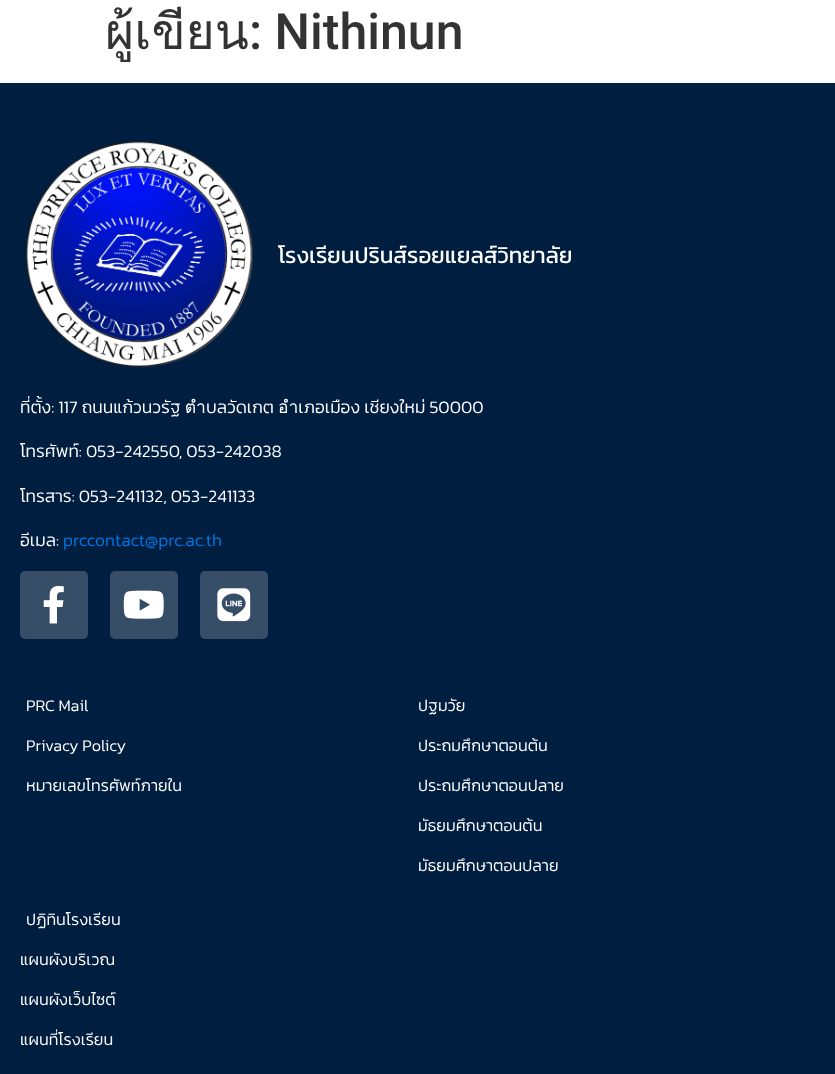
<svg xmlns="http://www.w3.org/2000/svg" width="835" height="1074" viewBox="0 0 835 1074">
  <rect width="100%" height="100%" fill="rgb(255,255,255)"/>
  <text x="105" y="49" font-family="Loma" font-size="50" fill="rgb(51,51,51)">ผู้เขียน</text>
  <text x="249" y="49" font-family="Roboto" font-size="50" font-weight="500" fill="rgb(51,51,51)">: Nithinun</text>
  <rect x="0" y="83" width="835" height="991" fill="rgb(0,30,64)"/>
  <image x="25" y="141" width="228" height="227" href="pic1.png"/>
  <text x="278" y="263" font-family="Kanit" font-size="22.5" fill="rgb(255,255,255)">โรงเรียนปรินส์รอยแยลส์วิทยาลัย</text>
  <g font-family="Kanit" font-size="17.5" font-weight="300" fill="rgb(255,255,255)">
    <text x="20" y="413">ที่ตั้ง: 117 ถนนแก้วนวรัฐ ตำบลวัดเกต อำเภอเมือง เชียงใหม่ 50000</text>
    <text x="20" y="457">โทรศัพท์: 053-242550, 053-242038</text>
    <text x="20" y="502">โทรสาร: 053-241132, 053-241133</text>
    <text x="20" y="546">อีเมล:</text>
  </g>
  <text x="63" y="546" font-family="Kanit" font-size="17.5" font-weight="300" fill="rgb(0,117,225)">prccontact@prc.ac.th</text>
  <rect x="20" y="571" width="68" height="68" rx="5" fill="rgb(54,77,104)"/>
  <image x="43" y="585" width="21" height="39" href="pic2.png"/>
  <rect x="110" y="571" width="68" height="68" rx="5" fill="rgb(54,77,104)"/>
  <image x="123" y="590" width="41" height="29" href="pic3.png"/>
  <rect x="200" y="571" width="68" height="68" rx="5" fill="rgb(54,77,104)"/>
  <image x="217" y="588" width="34" height="34" href="pic4.png"/>
  <g font-family="Kanit" font-size="16.25" font-weight="300" fill="rgb(255,255,255)">
    <text x="26" y="711">PRC Mail</text>
    <text x="26" y="751">Privacy Policy</text>
    <text x="26" y="791">หมายเลขโทรศัพท์ภายใน</text>
    <text x="418" y="711">ปฐมวัย</text>
    <text x="418" y="751">ประถมศึกษาตอนต้น</text>
    <text x="418" y="791">ประถมศึกษาตอนปลาย</text>
    <text x="418" y="831">มัธยมศึกษาตอนต้น</text>
    <text x="418" y="871">มัธยมศึกษาตอนปลาย</text>
    <text x="26" y="925">ปฏิทินโรงเรียน</text>
    <text x="20" y="965">แผนผังบริเวณ</text>
    <text x="20" y="1005">แผนผังเว็บไซต์</text>
    <text x="20" y="1045">แผนที่โรงเรียน</text>
  </g>
</svg>
